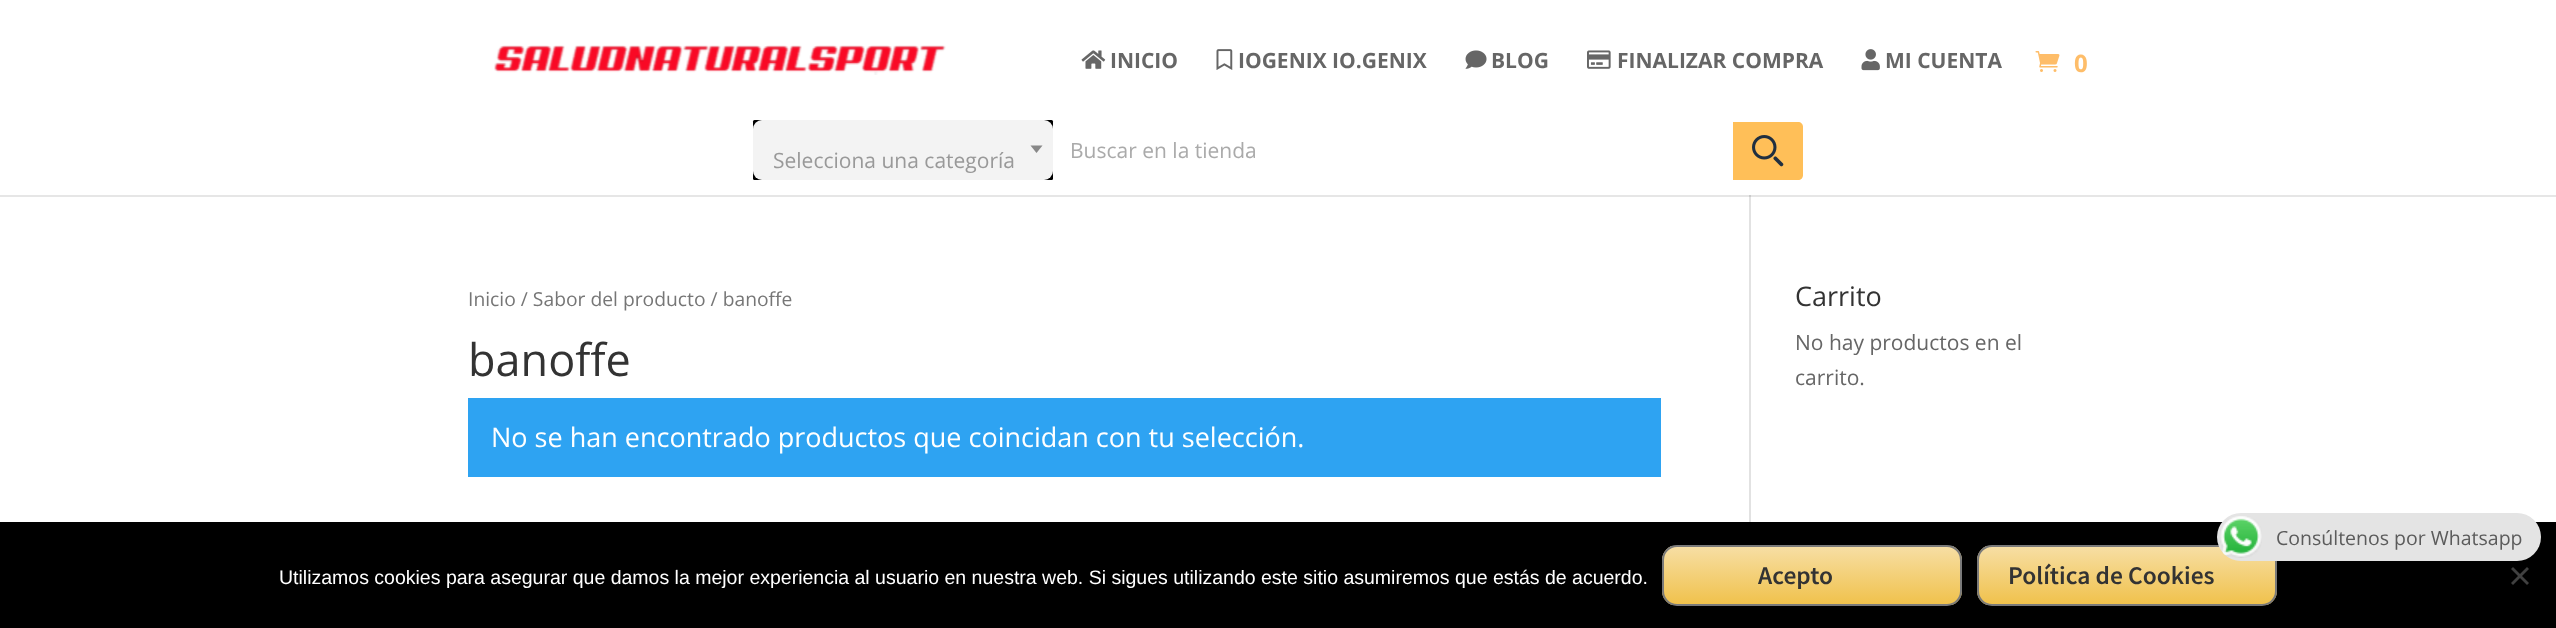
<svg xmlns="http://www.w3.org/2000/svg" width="2556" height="628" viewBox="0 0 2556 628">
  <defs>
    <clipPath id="clip1"><rect x="1977" y="545" width="300" height="61" rx="15"/></clipPath>
    <linearGradient id="g1" gradientUnits="userSpaceOnUse" x1="2127" y1="546" x2="2127" y2="605"><stop offset="0" stop-color="rgb(247,223,165)"/><stop offset="1" stop-color="rgb(240,193,75)"/></linearGradient>
    <clipPath id="clip2"><rect x="1662" y="545" width="300" height="61" rx="15"/></clipPath>
    <linearGradient id="g2" gradientUnits="userSpaceOnUse" x1="1812" y1="546" x2="1812" y2="605"><stop offset="0" stop-color="rgb(247,223,165)"/><stop offset="1" stop-color="rgb(240,193,75)"/></linearGradient>
  </defs>
  <rect width="100%" height="100%" fill="rgb(255,255,255)"/>
  <rect x="0" y="195" width="2556" height="2" fill="rgb(230,230,230)"/>
  <image x="494" y="45" width="452" height="30" href="pic1.png"/>
  <image x="1081" y="50" width="25" height="19" href="pic2.png"/>
  <text x="1110" y="68" font-family="Open Sans" font-size="21" font-weight="bold" fill="rgb(102,102,102)">INICIO</text>
  <image x="1216" y="49" width="17" height="21" href="pic3.png"/>
  <text x="1238" y="68" font-family="Open Sans" font-size="21" font-weight="bold" fill="rgb(102,102,102)">IOGENIX IO.GENIX</text>
  <image x="1465" y="50" width="22" height="19" href="pic4.png"/>
  <text x="1491" y="68" font-family="Open Sans" font-size="21" font-weight="bold" fill="rgb(102,102,102)">BLOG</text>
  <image x="1587" y="50" width="24" height="19" href="pic5.png"/>
  <text x="1617" y="68" font-family="Open Sans" font-size="21" font-weight="bold" fill="rgb(102,102,102)">FINALIZAR COMPRA</text>
  <image x="1861" y="49" width="19" height="22" href="pic6.png"/>
  <text x="1885" y="68" font-family="Open Sans" font-size="21" font-weight="bold" fill="rgb(102,102,102)">MI CUENTA</text>
  <image x="2035" y="51" width="25" height="21" href="pic7.png"/>
  <text x="2074" y="72" font-family="Open Sans" font-size="24" font-weight="bold" fill="rgb(254,189,105)">0</text>
  <rect x="753" y="120" width="300" height="60" fill="rgb(243,243,243)"/>
  <rect x="753" y="120" width="300" height="60" rx="1.5" fill="rgb(0,0,0)"/>
  <rect x="753" y="120" width="300" height="60" rx="9" fill="rgb(243,243,243)"/>
  <path d="M1030.5 145.5H1042.5L1036.5 153Z" fill="rgb(136,136,136)"/>
  <text x="773" y="168" font-family="Open Sans" font-size="21" fill="rgb(153,153,153)">Selecciona una categoría</text>
  <text x="1070" y="158" font-family="Open Sans" font-size="21" fill="rgb(170,170,170)">Buscar en la tienda</text>
  <path d="M1733 122H1798C1801 122 1803 124 1803 127V175C1803 178 1801 180 1798 180H1733Z" fill="rgb(255,191,88)"/>
  <image x="1752" y="135" width="32" height="32" href="pic8.png"/>
  <rect x="1749" y="197" width="2" height="325" fill="rgb(226,226,226)"/>
  <rect x="1749" y="195" width="2" height="2" fill="rgb(203,203,203)"/>
  <text x="468" y="306" font-family="Open Sans" font-size="19.3" fill="rgb(118,118,118)">Inicio / Sabor del producto / banoffe</text>
  <text x="468" y="376" font-family="Open Sans" font-size="45" fill="rgb(51,51,51)">banoffe</text>
  <rect x="468" y="398" width="1193" height="79" fill="rgb(46,163,242)"/>
  <text x="491" y="447" font-family="Open Sans" font-size="27" fill="rgb(255,255,255)">No se han encontrado productos que coincidan con tu selección.</text>
  <text x="1795" y="306" font-family="Open Sans" font-size="27" fill="rgb(51,51,51)">Carrito</text>
  <g font-family="Open Sans" font-size="21" fill="rgb(102,102,102)">
    <text>
      <tspan x="1795" y="350">No hay productos en el</tspan>
      <tspan x="1795" y="385">carrito.</tspan>
    </text>
  </g>
  <rect x="0" y="522" width="2556" height="106" fill="rgb(0,0,0)"/>
  <g clip-path="url(#clip1)">
    <rect x="1977" y="546" width="300" height="59" fill="url(#g1)"/>
  </g>
  <rect x="1978" y="546" width="298" height="59" rx="14" fill="none" stroke="rgb(122,122,122)" stroke-width="2"/>
  <rect x="2217" y="513" width="324" height="48" rx="24" fill="rgb(228,228,228)"/>
  <image x="2220" y="516" width="42" height="42" href="pic9.png"/>
  <text x="2276" y="545" font-family="Open Sans" font-size="19.5" fill="rgb(91,91,91)">Consúltenos por Whatsapp</text>
  <text x="279" y="584" font-family="Liberation Sans" font-size="19.5" fill="rgb(255,255,255)">Utilizamos cookies para asegurar que damos la mejor experiencia al usuario en nuestra web. Si sigues utilizando este sitio asumiremos que estás de acuerdo.</text>
  <g clip-path="url(#clip2)">
    <rect x="1662" y="546" width="300" height="59" fill="url(#g2)"/>
  </g>
  <rect x="1663" y="546" width="298" height="59" rx="14" fill="none" stroke="rgb(122,122,122)" stroke-width="2"/>
  <g font-family="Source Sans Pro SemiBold" font-size="25.5" font-weight="600" fill="rgb(51,51,51)">
    <text x="1758" y="584">Acepto</text>
    <text x="2008" y="584">Política de Cookies</text>
  </g>
  <path d="M2527 567L2529 569L2513 585L2511 583Z" fill="rgb(64,64,64)"/>
  <path d="M2511 569L2513 567L2529 583L2527 585Z" fill="rgb(64,64,64)"/>
</svg>
